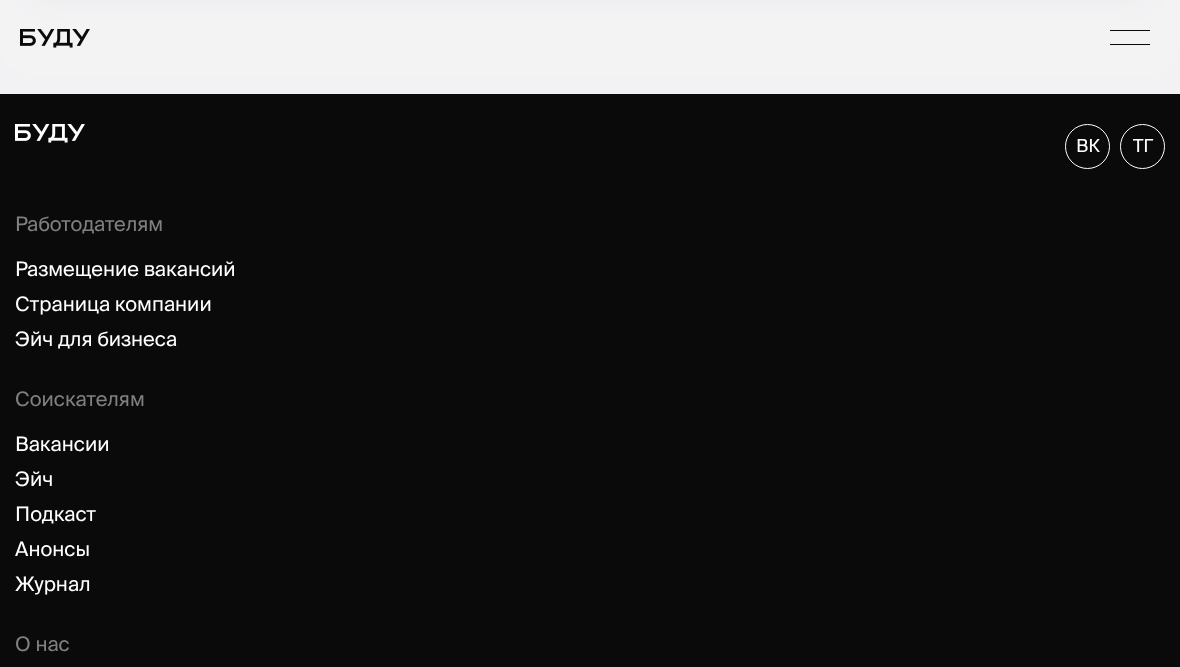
<svg xmlns="http://www.w3.org/2000/svg" width="1180" height="667" viewBox="0 0 1180 667">
  <rect width="100%" height="100%" fill="rgb(242,242,244)"/>
  <rect x="24" y="-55" width="1132" height="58" rx="26" fill="rgba(0,0,0,0.1)" filter="blur(9.5px)"/>
  <path d="M0 0H1180V45C1180 61.5 1166.5 75 1150 75H30C13.5 75 0 61.5 0 45Z" fill="rgba(242,242,244,0.8)"/>
  <image x="20" y="29" width="70" height="19" href="pic1.png"/>
  <rect x="1110" y="30" width="40" height="1" fill="rgb(10,10,10)"/>
  <rect x="1110" y="44" width="40" height="1" fill="rgb(10,10,10)"/>
  <rect x="0" y="94" width="1180" height="573" fill="rgb(10,10,10)"/>
  <image x="15" y="124" width="70" height="19" href="pic2.png"/>
  <circle cx="1087.5" cy="146.5" r="22" fill="none" stroke="rgb(255,255,255)"/>
  <text x="1076" y="152" font-family="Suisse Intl" font-size="18" fill="rgb(255,255,255)">ВК</text>
  <circle cx="1142.5" cy="146.5" r="22" fill="none" stroke="rgb(255,255,255)"/>
  <text x="1133" y="152" font-family="Suisse Intl" font-size="18" fill="rgb(255,255,255)">ТГ</text>
  <text x="15" y="231" font-family="Suisse Intl" font-size="20" fill="rgb(128,128,128)">Работодателям</text>
  <g font-family="Suisse Intl" font-size="20" fill="rgb(255,255,255)">
    <text>
      <tspan x="15" y="276">Размещение вакансий</tspan>
      <tspan x="15" y="311">Страница компании</tspan>
      <tspan x="15" y="346">Эйч для бизнеса</tspan>
    </text>
  </g>
  <text x="15" y="406" font-family="Suisse Intl" font-size="20" fill="rgb(128,128,128)">Соискателям</text>
  <g font-family="Suisse Intl" font-size="20" fill="rgb(255,255,255)">
    <text>
      <tspan x="15" y="451">Вакансии</tspan>
      <tspan x="15" y="486">Эйч</tspan>
      <tspan x="15" y="521">Подкаст</tspan>
      <tspan x="15" y="556">Анонсы</tspan>
      <tspan x="15" y="591">Журнал</tspan>
    </text>
  </g>
  <text x="15" y="651" font-family="Suisse Intl" font-size="20" fill="rgb(128,128,128)">О нас</text>
</svg>
